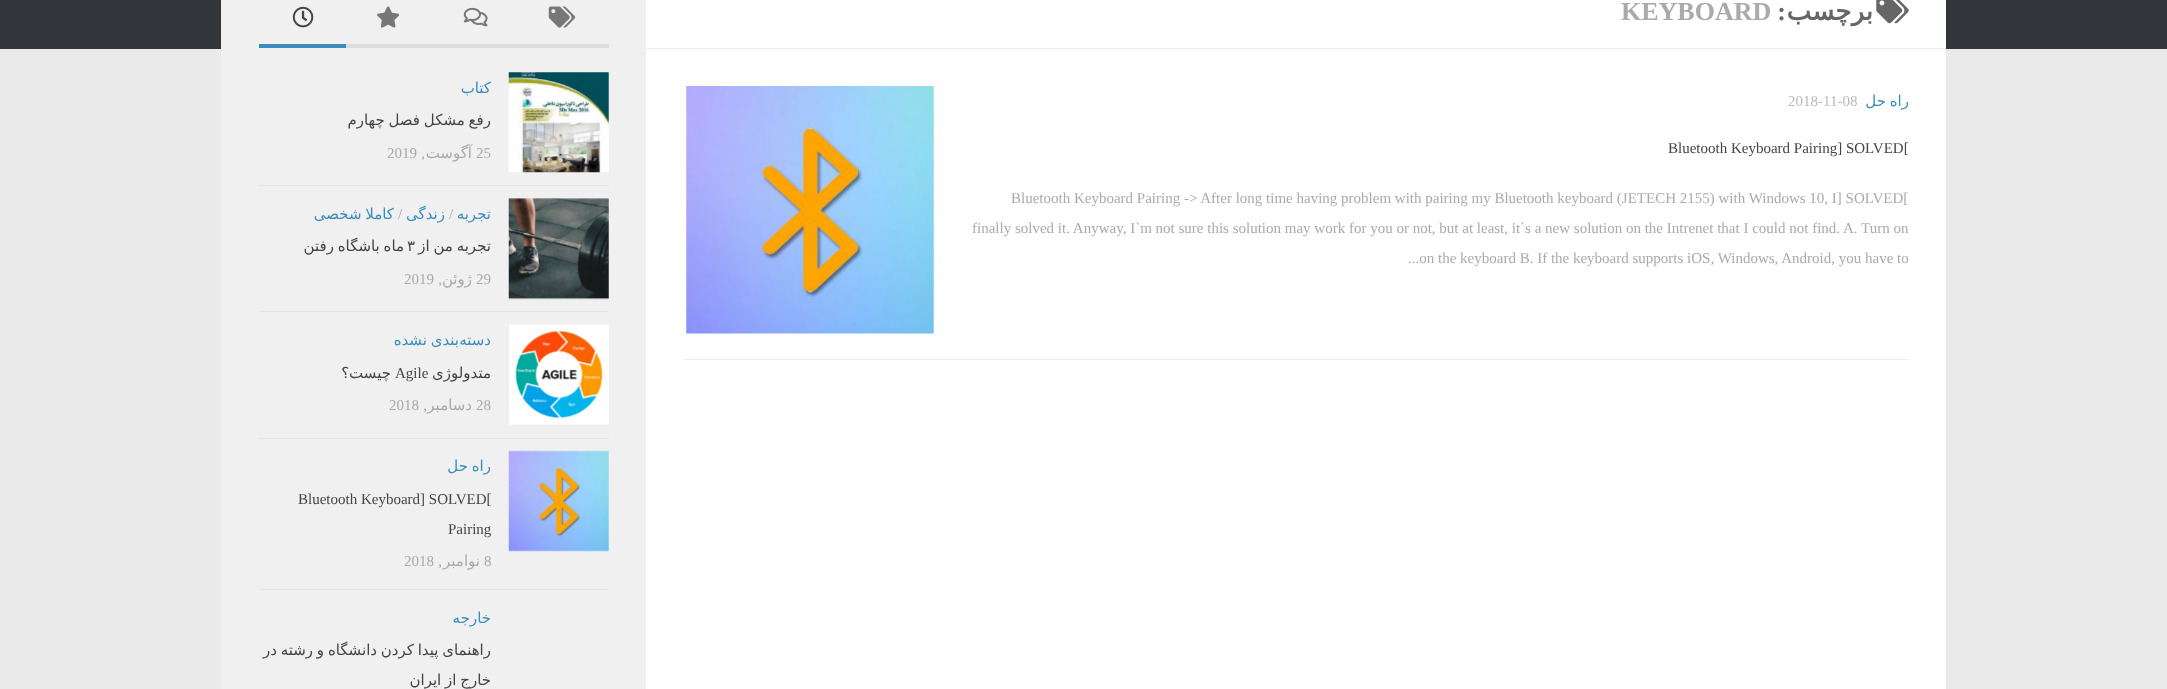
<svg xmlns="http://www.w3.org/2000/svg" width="2167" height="689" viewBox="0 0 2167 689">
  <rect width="100%" height="100%" fill="rgb(234,234,234)"/>
  <rect x="0" y="0" width="2167" height="49" fill="rgb(51,54,59)"/>
  <rect x="646" y="0" width="1300" height="689" fill="rgb(255,255,255)"/>
  <rect x="221" y="0" width="425" height="689" fill="rgb(240,240,240)"/>
  <rect x="346" y="44" width="263" height="4" fill="rgb(221,221,221)"/>
  <rect x="259" y="44" width="87" height="4" fill="rgb(59,141,189)"/>
  <image x="292" y="6" width="22" height="22" href="pic1.png"/>
  <image x="377" y="6" width="23" height="22" href="pic2.png"/>
  <image x="463" y="7" width="25" height="20" href="pic3.png"/>
  <image x="548" y="6" width="28" height="22" href="pic4.png"/>
  <rect x="259" y="185" width="350" height="1" fill="rgb(228,228,228)"/>
  <text x="491" y="93" font-family="DejaVu Sans" font-size="15" direction="rtl" fill="rgb(59,141,189)">کتاب</text>
  <text x="491" y="125" word-spacing="-1" font-family="DejaVu Sans" font-size="15" direction="rtl" fill="rgb(68,68,68)">رفع مشکل فصل چهارم</text>
  <text x="387" y="158" font-family="Liberation Serif" font-size="15" fill="rgb(170,170,170)">2019</text>
  <text x="425" y="158" font-family="Liberation Serif" font-size="15" direction="rtl" fill="rgb(170,170,170)">,</text>
  <text x="472" y="158" font-family="DejaVu Sans" font-size="15" direction="rtl" fill="rgb(170,170,170)">آگوست</text>
  <text x="476" y="158" font-family="Liberation Serif" font-size="15" fill="rgb(170,170,170)">25</text>
  <image x="508" y="72" width="101" height="101" href="pic5.png"/>
  <rect x="259" y="311" width="350" height="1" fill="rgb(228,228,228)"/>
  <text x="394" y="219" word-spacing="-1" font-family="DejaVu Sans" font-size="15" direction="rtl" fill="rgb(59,141,189)">کاملا شخصی</text>
  <text x="398" y="219" font-family="Liberation Serif" font-size="15" fill="rgb(170,170,170)">/</text>
  <text x="445" y="219" font-family="DejaVu Sans" font-size="15" direction="rtl" fill="rgb(59,141,189)">زندگی</text>
  <text x="449" y="219" font-family="Liberation Serif" font-size="15" fill="rgb(170,170,170)">/</text>
  <text x="491" y="219" font-family="DejaVu Sans" font-size="15" direction="rtl" fill="rgb(59,141,189)">تجربه</text>
  <text x="404" y="251" word-spacing="-1" font-family="DejaVu Sans" font-size="15" direction="rtl" fill="rgb(68,68,68)">ماه باشگاه رفتن</text>
  <text x="407" y="251" font-family="DejaVu Sans" font-size="15" fill="rgb(68,68,68)">۳</text>
  <text x="491" y="251" word-spacing="-1" font-family="DejaVu Sans" font-size="15" direction="rtl" fill="rgb(68,68,68)">تجربه من از</text>
  <text x="404" y="284" font-family="Liberation Serif" font-size="15" fill="rgb(170,170,170)">2019</text>
  <text x="442" y="284" font-family="Liberation Serif" font-size="15" direction="rtl" fill="rgb(170,170,170)">,</text>
  <text x="472" y="284" font-family="DejaVu Sans" font-size="15" direction="rtl" fill="rgb(170,170,170)">ژوئن</text>
  <text x="476" y="284" font-family="Liberation Serif" font-size="15" fill="rgb(170,170,170)">29</text>
  <image x="508" y="198" width="101" height="102" href="pic6.png"/>
  <rect x="259" y="438" width="350" height="1" fill="rgb(228,228,228)"/>
  <g font-family="DejaVu Sans" font-size="15" direction="rtl" fill="rgb(59,141,189)">
    <text x="459" y="345" word-spacing="-1">بندی نشده</text>
    <text x="491" y="345">دسته</text>
  </g>
  <text x="391" y="378" font-family="DejaVu Sans" font-size="15" direction="rtl" fill="rgb(68,68,68)">چیست؟</text>
  <text x="395" y="378" font-family="Liberation Serif" font-size="15" fill="rgb(68,68,68)">Agile</text>
  <text x="491" y="378" font-family="DejaVu Sans" font-size="15" direction="rtl" fill="rgb(68,68,68)">متدولوژی</text>
  <text x="389" y="410" font-family="Liberation Serif" font-size="15" fill="rgb(170,170,170)">2018</text>
  <text x="427" y="410" font-family="Liberation Serif" font-size="15" direction="rtl" fill="rgb(170,170,170)">,</text>
  <text x="472" y="410" font-family="DejaVu Sans" font-size="15" direction="rtl" fill="rgb(170,170,170)">دسامبر</text>
  <text x="476" y="410" font-family="Liberation Serif" font-size="15" fill="rgb(170,170,170)">28</text>
  <image x="509" y="324" width="100" height="101" href="pic7.png"/>
  <rect x="259" y="589" width="350" height="1" fill="rgb(228,228,228)"/>
  <text x="491" y="471" word-spacing="-1" font-family="DejaVu Sans" font-size="15" direction="rtl" fill="rgb(59,141,189)">راه حل</text>
  <g font-family="Liberation Serif" font-size="15" fill="rgb(68,68,68)">
    <text x="298" y="504">Bluetooth Keyboard] SOLVED[</text>
    <text x="448" y="534">Pairing</text>
  </g>
  <text x="404" y="566" font-family="Liberation Serif" font-size="15" fill="rgb(170,170,170)">2018</text>
  <text x="442" y="566" font-family="Liberation Serif" font-size="15" direction="rtl" fill="rgb(170,170,170)">,</text>
  <text x="480" y="566" font-family="DejaVu Sans" font-size="15" direction="rtl" fill="rgb(170,170,170)">نوامبر</text>
  <text x="484" y="566" font-family="Liberation Serif" font-size="15" fill="rgb(170,170,170)">8</text>
  <image x="508" y="450" width="101" height="102" href="pic8.png"/>
  <text x="491" y="623" font-family="DejaVu Sans" font-size="15" direction="rtl" fill="rgb(59,141,189)">خارجه</text>
  <g font-family="DejaVu Sans" font-size="15" direction="rtl" fill="rgb(68,68,68)">
    <text x="491" y="655" word-spacing="-1">راهنمای پیدا کردن دانشگاه و رشته در</text>
    <text x="491" y="685" word-spacing="-1">خارج از ایران</text>
  </g>
  <rect x="646" y="48" width="1300" height="1" fill="rgb(238,238,238)"/>
  <text x="1621" y="20" font-family="Liberation Serif" font-size="26" font-weight="bold" fill="rgb(170,170,170)">KEYBOARD</text>
  <text x="1786" y="20" font-family="Liberation Serif" font-size="26" font-weight="bold" direction="rtl" fill="rgb(102,102,102)">:</text>
  <text x="1873" y="20" font-family="DejaVu Sans" font-size="26" font-weight="bold" direction="rtl" fill="rgb(102,102,102)">برچسب</text>
  <image x="1876" y="0" width="33" height="24" href="pic9.png"/>
  <rect x="684" y="359" width="1225" height="1" fill="rgb(238,238,238)"/>
  <image x="686" y="86" width="248" height="248" href="pic10.png"/>
  <text x="1788" y="106" font-family="Liberation Serif" font-size="15" fill="rgb(187,187,187)">2018-11-08</text>
  <text x="1909" y="106" word-spacing="-1" font-family="DejaVu Sans" font-size="15" direction="rtl" fill="rgb(59,141,189)">راه حل</text>
  <text x="1668" y="153" font-family="Liberation Serif" font-size="15" fill="rgb(68,68,68)">Bluetooth Keyboard Pairing] SOLVED[</text>
  <g font-family="Liberation Serif" font-size="15" fill="rgb(170,170,170)">
    <text x="1011" y="203">Bluetooth Keyboard Pairing -&gt; After long time having problem with pairing my Bluetooth keyboard (JETECH 2155) with Windows 10, I] SOLVED[</text>
    <text x="972" y="233">finally solved it. Anyway, I`m not sure this solution may work for you or not, but at least, it`s a new solution on the Intrenet that I could not find. A. Turn on</text>
    <text x="1408" y="263">...on the keyboard B. If the keyboard supports iOS, Windows, Android, you have to</text>
  </g>
</svg>
